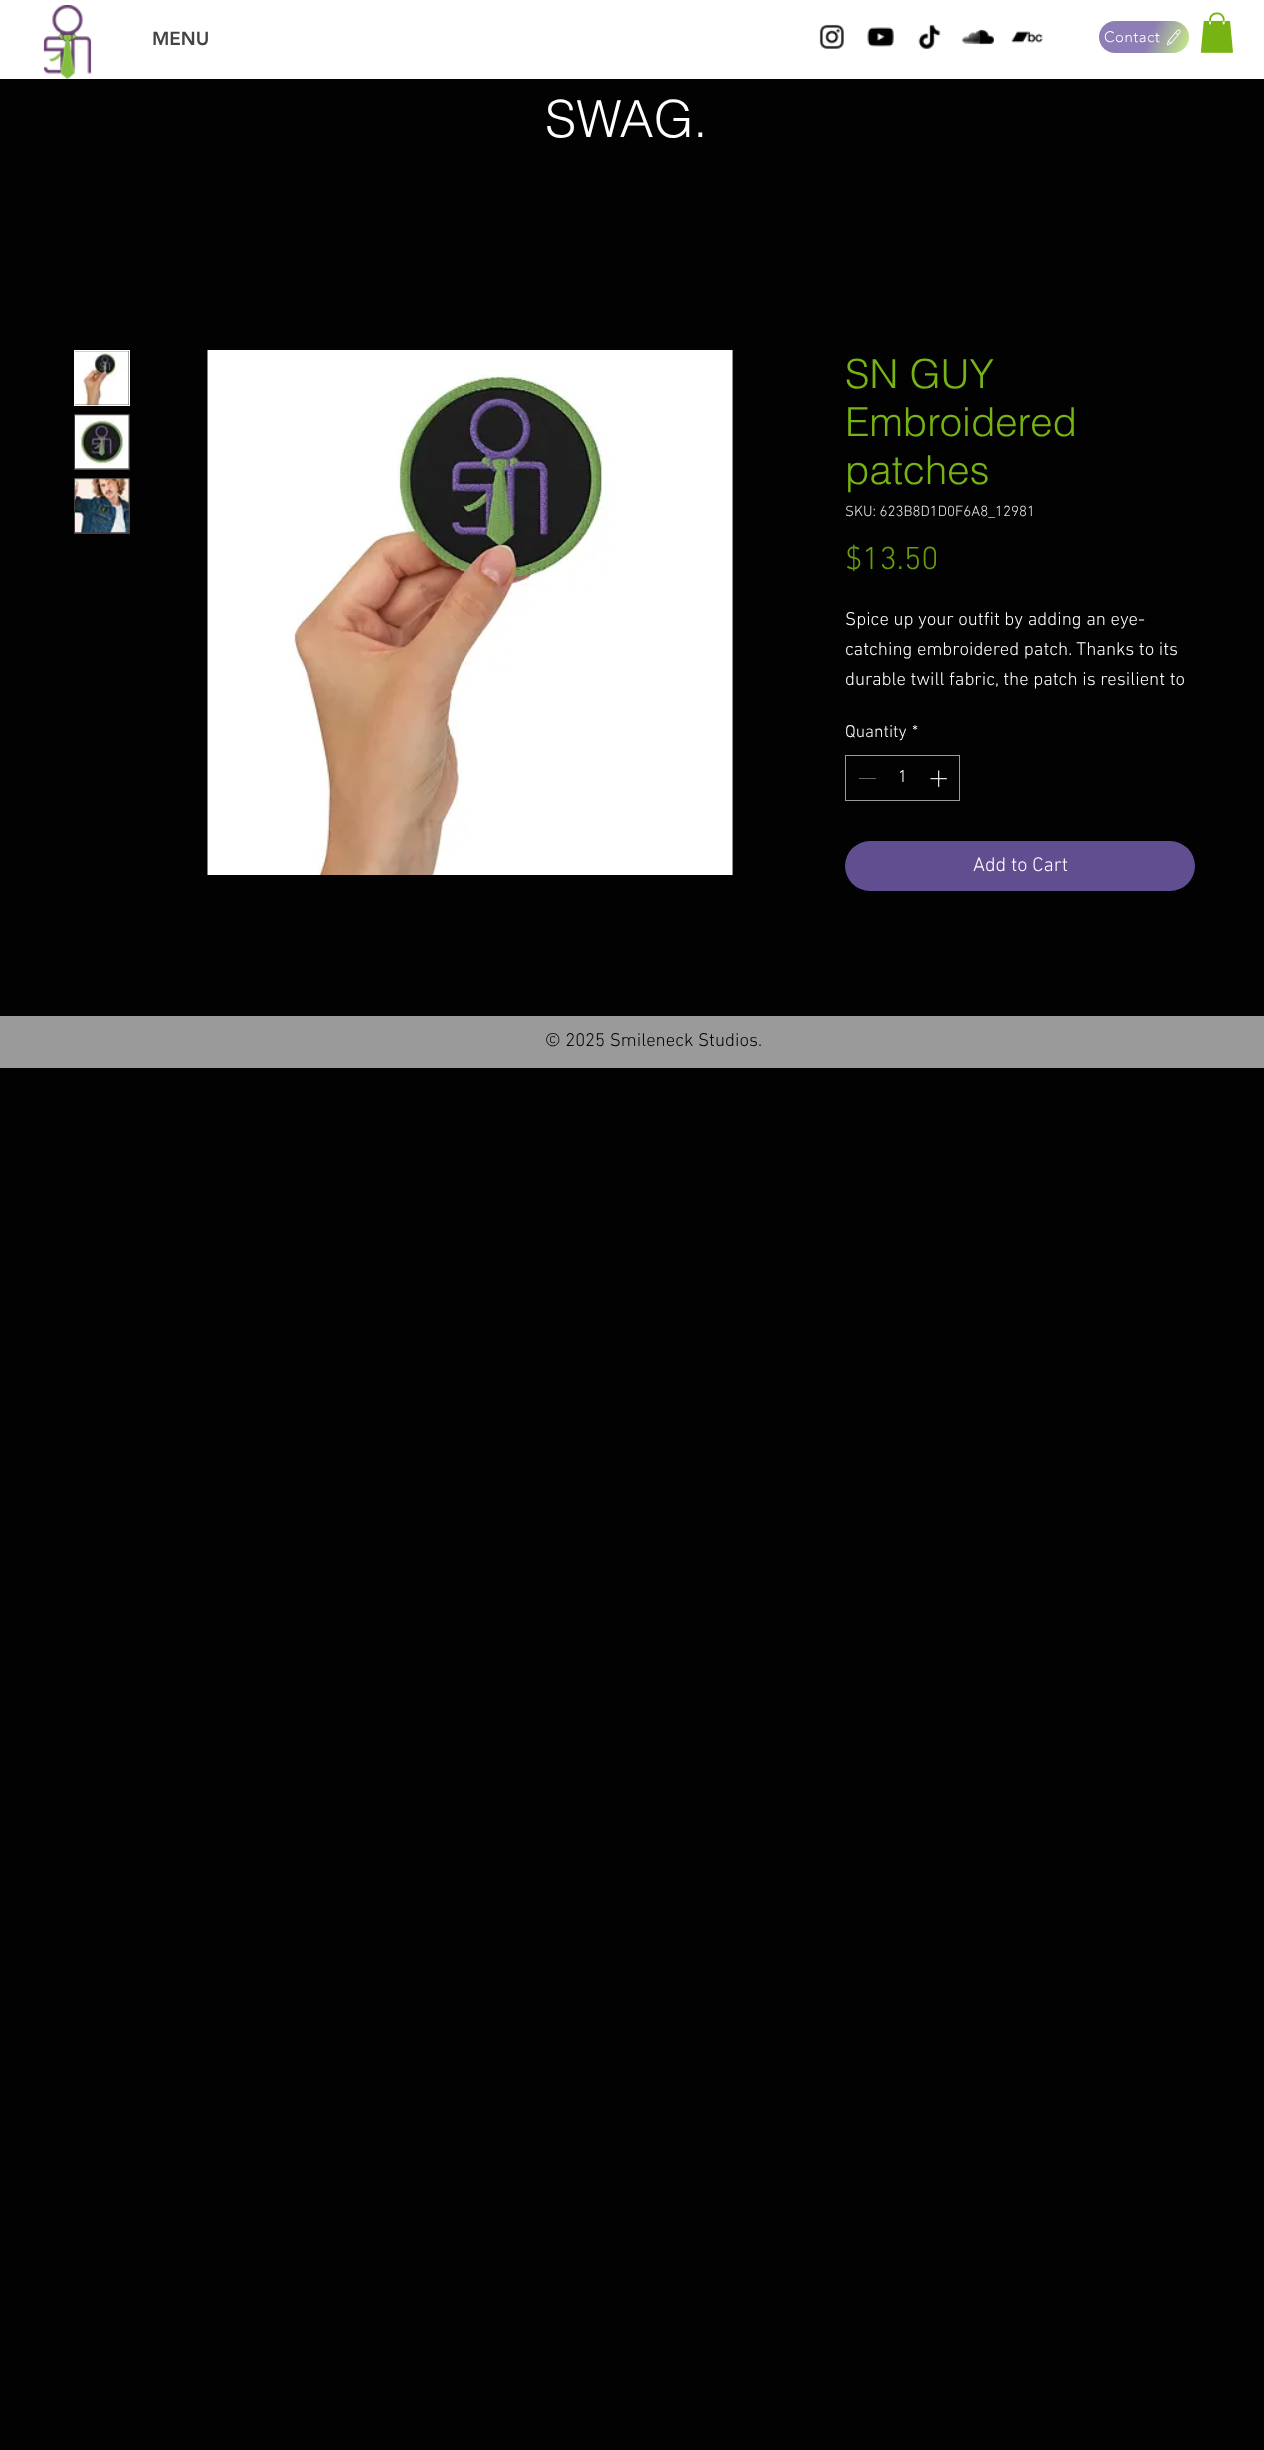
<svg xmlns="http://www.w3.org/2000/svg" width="1264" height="2450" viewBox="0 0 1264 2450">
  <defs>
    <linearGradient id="g1" gradientUnits="userSpaceOnUse" x1="1100" y1="18" x2="1187" y2="55"><stop offset="0.56" stop-color="rgb(141,126,181)"/><stop offset="1" stop-color="rgb(201,240,133)"/></linearGradient>
  </defs>
  <rect width="100%" height="100%" fill="rgb(2,2,2)"/>
  <rect x="0" y="0" width="1264" height="79" fill="rgb(255,255,255)"/>
  <image x="43" y="5" width="49" height="74" href="pic1.png"/>
  <text x="152" y="45" font-family="'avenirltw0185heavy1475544'" font-size="18.75" font-weight="900" fill="rgb(68,68,68)">MENU</text>
  <image x="819" y="24" width="25" height="25" href="pic2.png"/>
  <image x="867" y="27" width="27" height="20" href="pic3.png"/>
  <image x="918" y="24" width="23" height="25" href="pic4.png"/>
  <image x="962" y="29" width="32" height="16" href="pic5.png"/>
  <image x="1011" y="31" width="32" height="12" href="pic6.png"/>
  <rect x="1099" y="21" width="90" height="32" rx="16" fill="url(#g1)"/>
  <text x="1104" y="42" font-family="'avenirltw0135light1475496'" font-size="15" font-weight="300" letter-spacing="0.5" fill="rgb(255,255,255)">Contact</text>
  <image x="1167" y="29" width="14" height="17" href="pic7.png"/>
  <image x="1200" y="12" width="33" height="41" href="pic8.png"/>
  <text x="545" y="137" font-family="helvetica" font-size="51" font-weight="300" fill="rgb(255,255,255)">SWAG.</text>
  <rect x="74.5" y="350.5" width="55" height="55" fill="rgb(68,63,63)" stroke="rgb(255,255,255)"/>
  <image x="75" y="351" width="54" height="55" href="pic9.png"/>
  <rect x="74" y="414" width="56" height="56" fill="rgb(68,63,63)"/>
  <image x="75" y="414" width="54" height="56" href="pic10.png"/>
  <rect x="74" y="478" width="56" height="56" fill="rgb(68,63,63)"/>
  <image x="75" y="478" width="54" height="55" href="pic11.png"/>
  <image x="207" y="350" width="526" height="525" href="pic12.png"/>
  <g font-family="helvetica" font-size="40" font-weight="300" fill="rgb(120,179,20)">
    <text>
      <tspan x="845" y="388">SN GUY</tspan>
      <tspan x="845" y="436">Embroidered</tspan>
      <tspan x="845" y="484">patches</tspan>
    </text>
  </g>
  <text x="845" y="516" font-family="'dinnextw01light'" font-size="15" font-weight="300" fill="rgb(238,230,230)">SKU: 623B8D1D0F6A8_12981</text>
  <text x="845" y="569" font-family="'dinnextw01light'" font-size="32.5" font-weight="300" fill="rgb(104,155,17)">$13.50</text>
  <g font-family="'dinnextw01light'" font-size="18.75" font-weight="300" fill="rgb(255,255,255)">
    <text>
      <tspan x="845" y="625">Spice up your outfit by adding an eye-</tspan>
      <tspan x="845" y="655">catching embroidered patch. Thanks to its</tspan>
      <tspan x="845" y="685">durable twill fabric, the patch is resilient to</tspan>
    </text>
  </g>
  <g font-family="'dinnextw01light'" font-size="17.5" font-weight="300" fill="rgb(255,255,255)">
    <text x="845" y="737">Quantity</text>
    <text x="912" y="737">*</text>
  </g>
  <rect x="845.5" y="755.5" width="114" height="45" fill="none" stroke="rgb(154,154,154)"/>
  <rect x="859" y="778" width="17" height="1" fill="rgb(101,101,101)"/>
  <text x="898" y="782" font-family="'dinnextw01light'" font-size="17.5" font-weight="300" fill="rgb(255,255,255)">1</text>
  <image x="930" y="770" width="17" height="17" href="pic13.png"/>
  <rect x="845" y="841" width="350" height="50" rx="25" fill="rgb(97,78,144)"/>
  <text x="973" y="871" font-family="'dinnextw01light'" font-size="20" font-weight="300" fill="rgb(255,255,255)">Add to Cart</text>
  <rect x="0" y="1016" width="1264" height="52" fill="rgb(154,154,154)"/>
  <text x="545" y="1046" font-family="'dinnextw01light'" font-size="18.75" font-weight="300" fill="rgb(2,2,2)">© 2025 Smileneck Studios.</text>
</svg>
